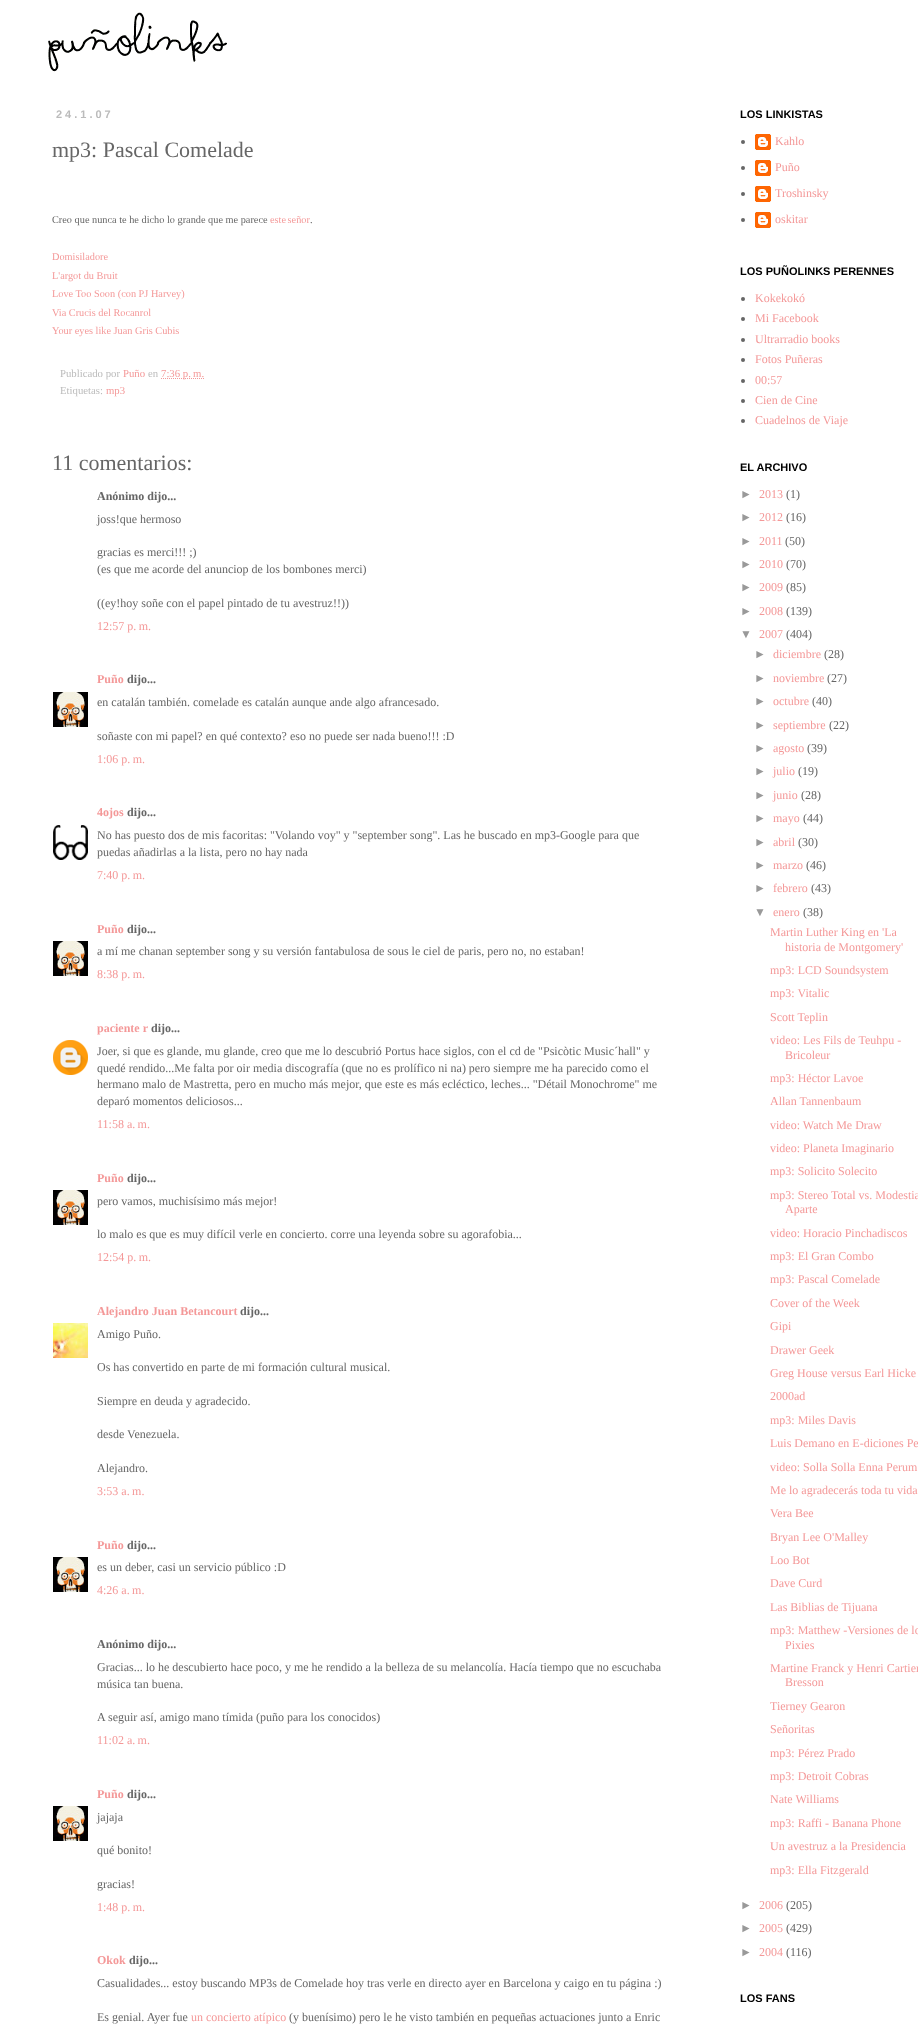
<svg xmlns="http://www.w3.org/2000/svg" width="918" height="2024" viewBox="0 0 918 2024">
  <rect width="100%" height="100%" fill="rgb(255,255,255)"/>
  <image x="48" y="12" width="179" height="60" href="pic1.png"/>
  <text x="56" y="118" font-family="Liberation Sans" font-size="11" font-weight="bold" letter-spacing="3" fill="rgb(187,187,187)">24.1.07</text>
  <text x="52" y="157" font-family="Liberation Serif" font-size="22" fill="rgb(102,102,102)">mp3: Pascal Comelade</text>
  <text x="52" y="223" font-family="Liberation Serif" font-size="10.3" fill="rgb(102,102,102)">Creo que nunca te he dicho lo grande que me parece</text>
  <text x="270" y="223" word-spacing="-1" font-family="Liberation Serif" font-size="10.3" fill="rgb(244,152,152)">este señor</text>
  <text x="310" y="223" font-family="Liberation Serif" font-size="10.3" fill="rgb(102,102,102)">.</text>
  <g font-family="Liberation Serif" font-size="10.3" fill="rgb(244,152,152)">
    <text>
      <tspan x="52" y="260">Domisiladore</tspan>
      <tspan x="52" y="279">L'argot du Bruit</tspan>
      <tspan x="52" y="297">Love Too Soon (con PJ Harvey)</tspan>
      <tspan x="52" y="316">Via Crucis del Rocanrol</tspan>
      <tspan x="52" y="334">Your eyes like Juan Gris Cubis</tspan>
    </text>
  </g>
  <text x="60" y="377" font-family="Liberation Serif" font-size="10.75" fill="rgb(187,187,187)">Publicado por</text>
  <text x="123" y="377" font-family="Liberation Serif" font-size="10.75" fill="rgb(244,152,152)">Puño</text>
  <text x="148" y="377" font-family="Liberation Serif" font-size="10.75" fill="rgb(187,187,187)">en</text>
  <path d="M161 378.5H204" fill="none" stroke="rgb(244,152,152)" stroke-dasharray="1 1"/>
  <text x="161" y="377" font-family="Liberation Serif" font-size="10.75" fill="rgb(244,152,152)">7:36 p. m.</text>
  <text x="60" y="394" font-family="Liberation Serif" font-size="10.75" fill="rgb(187,187,187)">Etiquetas:</text>
  <text x="106" y="394" font-family="Liberation Serif" font-size="10.75" fill="rgb(244,152,152)">mp3</text>
  <text x="52" y="470" font-family="Liberation Serif" font-size="22" fill="rgb(102,102,102)">11 comentarios:</text>
  <text x="97" y="500" font-family="Liberation Serif" font-size="12" font-weight="bold" fill="rgb(102,102,102)">Anónimo dijo...</text>
  <g font-family="Liberation Serif" font-size="12" fill="rgb(102,102,102)">
    <text x="97" y="523">joss!que hermoso</text>
    <text>
      <tspan x="97" y="556">gracias es merci!!! ;)</tspan>
      <tspan x="97" y="573">(es que me acorde del anunciop de los bombones merci)</tspan>
    </text>
    <text x="97" y="607">((ey!hoy soñe con el papel pintado de tu avestruz!!))</text>
  </g>
  <text x="97" y="630" font-family="Liberation Serif" font-size="12" fill="rgb(244,152,152)">12:57 p. m.</text>
  <text x="97" y="683" font-family="Liberation Serif" font-size="12" font-weight="bold" fill="rgb(244,152,152)">Puño</text>
  <text x="127" y="683" font-family="Liberation Serif" font-size="12" font-weight="bold" fill="rgb(102,102,102)">dijo...</text>
  <image x="53" y="692" width="35" height="35" href="pic2.png"/>
  <g font-family="Liberation Serif" font-size="12" fill="rgb(102,102,102)">
    <text x="97" y="706">en catalán también. comelade es catalán aunque ande algo afrancesado.</text>
    <text x="97" y="740">soñaste con mi papel? en qué contexto? eso no puede ser nada bueno!!! :D</text>
  </g>
  <text x="97" y="763" font-family="Liberation Serif" font-size="12" fill="rgb(244,152,152)">1:06 p. m.</text>
  <text x="97" y="816" font-family="Liberation Serif" font-size="12" font-weight="bold" fill="rgb(244,152,152)">4ojos</text>
  <text x="127" y="816" font-family="Liberation Serif" font-size="12" font-weight="bold" fill="rgb(102,102,102)">dijo...</text>
  <image x="53" y="825" width="35" height="35" href="pic3.png"/>
  <g font-family="Liberation Serif" font-size="12" fill="rgb(102,102,102)">
    <text>
      <tspan x="97" y="839">No has puesto dos de mis facoritas: "Volando voy" y "september song". Las he buscado en mp3-Google para que</tspan>
      <tspan x="97" y="856">puedas añadirlas a la lista, pero no hay nada</tspan>
    </text>
  </g>
  <text x="97" y="879" font-family="Liberation Serif" font-size="12" fill="rgb(244,152,152)">7:40 p. m.</text>
  <text x="97" y="933" font-family="Liberation Serif" font-size="12" font-weight="bold" fill="rgb(244,152,152)">Puño</text>
  <text x="127" y="933" font-family="Liberation Serif" font-size="12" font-weight="bold" fill="rgb(102,102,102)">dijo...</text>
  <image x="53" y="941" width="35" height="35" href="pic4.png"/>
  <text x="97" y="955" font-family="Liberation Serif" font-size="12" fill="rgb(102,102,102)">a mí me chanan september song y su versión fantabulosa de sous le ciel de paris, pero no, no estaban!</text>
  <text x="97" y="978" font-family="Liberation Serif" font-size="12" fill="rgb(244,152,152)">8:38 p. m.</text>
  <text x="97" y="1032" font-family="Liberation Serif" font-size="12" font-weight="bold" fill="rgb(244,152,152)">paciente r</text>
  <text x="151" y="1032" font-family="Liberation Serif" font-size="12" font-weight="bold" fill="rgb(102,102,102)">dijo...</text>
  <image x="53" y="1040" width="35" height="35" href="pic5.png"/>
  <g font-family="Liberation Serif" font-size="12" fill="rgb(102,102,102)">
    <text>
      <tspan x="97" y="1055">Joer, si que es glande, mu glande, creo que me lo descubrió Portus hace siglos, con el cd de "Psicòtic Music´hall" y</tspan>
      <tspan x="97" y="1072">quedé rendido...Me falta por oir media discografía (que no es prolífico ni na) pero siempre me ha parecido como el</tspan>
      <tspan x="97" y="1088">hermano malo de Mastretta, pero en mucho más mejor, que este es más ecléctico, leches... "Détail Monochrome" me</tspan>
      <tspan x="97" y="1105">deparó momentos deliciosos...</tspan>
    </text>
  </g>
  <text x="97" y="1128" font-family="Liberation Serif" font-size="12" fill="rgb(244,152,152)">11:58 a. m.</text>
  <text x="97" y="1182" font-family="Liberation Serif" font-size="12" font-weight="bold" fill="rgb(244,152,152)">Puño</text>
  <text x="127" y="1182" font-family="Liberation Serif" font-size="12" font-weight="bold" fill="rgb(102,102,102)">dijo...</text>
  <image x="53" y="1190" width="35" height="35" href="pic4.png"/>
  <g font-family="Liberation Serif" font-size="12" fill="rgb(102,102,102)">
    <text x="97" y="1205">pero vamos, muchisísimo más mejor!</text>
    <text x="97" y="1238">lo malo es que es muy difícil verle en concierto. corre una leyenda sobre su agorafobia...</text>
  </g>
  <text x="97" y="1261" font-family="Liberation Serif" font-size="12" fill="rgb(244,152,152)">12:54 p. m.</text>
  <text x="97" y="1315" font-family="Liberation Serif" font-size="12" font-weight="bold" fill="rgb(244,152,152)">Alejandro Juan Betancourt</text>
  <text x="240" y="1315" font-family="Liberation Serif" font-size="12" font-weight="bold" fill="rgb(102,102,102)">dijo...</text>
  <image x="53" y="1323" width="35" height="35" href="pic6.png"/>
  <g font-family="Liberation Serif" font-size="12" fill="rgb(102,102,102)">
    <text x="97" y="1338">Amigo Puño.</text>
    <text x="97" y="1371">Os has convertido en parte de mi formación cultural musical.</text>
    <text x="97" y="1405">Siempre en deuda y agradecido.</text>
    <text x="97" y="1438">desde Venezuela.</text>
    <text x="97" y="1472">Alejandro.</text>
  </g>
  <text x="97" y="1495" font-family="Liberation Serif" font-size="12" fill="rgb(244,152,152)">3:53 a. m.</text>
  <text x="97" y="1549" font-family="Liberation Serif" font-size="12" font-weight="bold" fill="rgb(244,152,152)">Puño</text>
  <text x="127" y="1549" font-family="Liberation Serif" font-size="12" font-weight="bold" fill="rgb(102,102,102)">dijo...</text>
  <image x="53" y="1557" width="35" height="35" href="pic4.png"/>
  <text x="97" y="1571" font-family="Liberation Serif" font-size="12" fill="rgb(102,102,102)">es un deber, casi un servicio público :D</text>
  <text x="97" y="1594" font-family="Liberation Serif" font-size="12" fill="rgb(244,152,152)">4:26 a. m.</text>
  <text x="97" y="1648" font-family="Liberation Serif" font-size="12" font-weight="bold" fill="rgb(102,102,102)">Anónimo dijo...</text>
  <g font-family="Liberation Serif" font-size="12" fill="rgb(102,102,102)">
    <text>
      <tspan x="97" y="1671">Gracias... lo he descubierto hace poco, y me he rendido a la belleza de su melancolía. Hacía tiempo que no escuchaba</tspan>
      <tspan x="97" y="1688">música tan buena.</tspan>
    </text>
    <text x="97" y="1721">A seguir así, amigo mano tímida (puño para los conocidos)</text>
  </g>
  <text x="97" y="1744" font-family="Liberation Serif" font-size="12" fill="rgb(244,152,152)">11:02 a. m.</text>
  <text x="97" y="1798" font-family="Liberation Serif" font-size="12" font-weight="bold" fill="rgb(244,152,152)">Puño</text>
  <text x="127" y="1798" font-family="Liberation Serif" font-size="12" font-weight="bold" fill="rgb(102,102,102)">dijo...</text>
  <image x="53" y="1806" width="35" height="35" href="pic4.png"/>
  <g font-family="Liberation Serif" font-size="12" fill="rgb(102,102,102)">
    <text x="97" y="1821">jajaja</text>
    <text x="97" y="1854">qué bonito!</text>
    <text x="97" y="1888">gracias!</text>
  </g>
  <text x="97" y="1911" font-family="Liberation Serif" font-size="12" fill="rgb(244,152,152)">1:48 p. m.</text>
  <text x="97" y="1964" font-family="Liberation Serif" font-size="12" font-weight="bold" fill="rgb(244,152,152)">Okok</text>
  <text x="129" y="1964" font-family="Liberation Serif" font-size="12" font-weight="bold" fill="rgb(102,102,102)">dijo...</text>
  <g font-family="Liberation Serif" font-size="12" fill="rgb(102,102,102)">
    <text x="97" y="1987">Casualidades... estoy buscando MP3s de Comelade hoy tras verle en directo ayer en Barcelona y caigo en tu página :)</text>
    <text x="97" y="2021">Es genial. Ayer fue</text>
  </g>
  <text x="191" y="2021" font-family="Liberation Serif" font-size="12" fill="rgb(244,152,152)">un concierto atípico</text>
  <text x="289" y="2021" font-family="Liberation Serif" font-size="12" fill="rgb(102,102,102)">(y buenísimo) pero le he visto también en pequeñas actuaciones junto a Enric</text>
  <text x="740" y="118" font-family="Liberation Sans" font-size="11" font-weight="bold" fill="rgb(0,0,0)">LOS LINKISTAS</text>
  <circle cx="743" cy="142" r="2" fill="rgb(102,102,102)"/>
  <image x="755" y="134" width="16" height="16" href="pic7.png"/>
  <text x="775" y="145" font-family="Liberation Serif" font-size="12" fill="rgb(244,152,152)">Kahlo</text>
  <circle cx="743" cy="168" r="2" fill="rgb(102,102,102)"/>
  <image x="755" y="160" width="16" height="16" href="pic7.png"/>
  <text x="775" y="171" font-family="Liberation Serif" font-size="12" fill="rgb(244,152,152)">Puño</text>
  <circle cx="743" cy="194" r="2" fill="rgb(102,102,102)"/>
  <image x="755" y="186" width="16" height="16" href="pic7.png"/>
  <text x="775" y="197" font-family="Liberation Serif" font-size="12" fill="rgb(244,152,152)">Troshinsky</text>
  <circle cx="743" cy="220" r="2" fill="rgb(102,102,102)"/>
  <image x="755" y="212" width="16" height="16" href="pic7.png"/>
  <text x="775" y="223" font-family="Liberation Serif" font-size="12" fill="rgb(244,152,152)">oskitar</text>
  <text x="740" y="275" font-family="Liberation Sans" font-size="11" font-weight="bold" fill="rgb(0,0,0)">LOS PUÑOLINKS PERENNES</text>
  <circle cx="743" cy="299" r="2" fill="rgb(102,102,102)"/>
  <text x="755" y="302" font-family="Liberation Serif" font-size="12" fill="rgb(244,152,152)">Kokekokó</text>
  <circle cx="743" cy="319" r="2" fill="rgb(102,102,102)"/>
  <text x="755" y="322" font-family="Liberation Serif" font-size="12" fill="rgb(244,152,152)">Mi Facebook</text>
  <circle cx="743" cy="340" r="2" fill="rgb(102,102,102)"/>
  <text x="755" y="343" font-family="Liberation Serif" font-size="12" fill="rgb(244,152,152)">Ultrarradio books</text>
  <circle cx="743" cy="360" r="2" fill="rgb(102,102,102)"/>
  <text x="755" y="363" font-family="Liberation Serif" font-size="12" fill="rgb(244,152,152)">Fotos Puñeras</text>
  <circle cx="743" cy="381" r="2" fill="rgb(102,102,102)"/>
  <text x="755" y="384" font-family="Liberation Serif" font-size="12" fill="rgb(244,152,152)">00:57</text>
  <circle cx="743" cy="401" r="2" fill="rgb(102,102,102)"/>
  <text x="755" y="404" font-family="Liberation Serif" font-size="12" fill="rgb(244,152,152)">Cien de Cine</text>
  <circle cx="743" cy="421" r="2" fill="rgb(102,102,102)"/>
  <text x="755" y="424" font-family="Liberation Serif" font-size="12" fill="rgb(244,152,152)">Cuadelnos de Viaje</text>
  <text x="740" y="471" font-family="Liberation Sans" font-size="11" font-weight="bold" fill="rgb(0,0,0)">EL ARCHIVO</text>
  <text x="740" y="498" font-family="Liberation Sans" font-size="12" fill="rgb(153,153,153)">►</text>
  <text x="759" y="498" font-family="Liberation Serif" font-size="12" fill="rgb(244,152,152)">2013</text>
  <text x="786" y="498" font-family="Liberation Serif" font-size="12" fill="rgb(102,102,102)">(1)</text>
  <text x="740" y="521" font-family="Liberation Sans" font-size="12" fill="rgb(153,153,153)">►</text>
  <text x="759" y="521" font-family="Liberation Serif" font-size="12" fill="rgb(244,152,152)">2012</text>
  <text x="786" y="521" font-family="Liberation Serif" font-size="12" fill="rgb(102,102,102)">(16)</text>
  <text x="740" y="545" font-family="Liberation Sans" font-size="12" fill="rgb(153,153,153)">►</text>
  <text x="759" y="545" font-family="Liberation Serif" font-size="12" fill="rgb(244,152,152)">2011</text>
  <text x="785" y="545" font-family="Liberation Serif" font-size="12" fill="rgb(102,102,102)">(50)</text>
  <text x="740" y="568" font-family="Liberation Sans" font-size="12" fill="rgb(153,153,153)">►</text>
  <text x="759" y="568" font-family="Liberation Serif" font-size="12" fill="rgb(244,152,152)">2010</text>
  <text x="786" y="568" font-family="Liberation Serif" font-size="12" fill="rgb(102,102,102)">(70)</text>
  <text x="740" y="591" font-family="Liberation Sans" font-size="12" fill="rgb(153,153,153)">►</text>
  <text x="759" y="591" font-family="Liberation Serif" font-size="12" fill="rgb(244,152,152)">2009</text>
  <text x="786" y="591" font-family="Liberation Serif" font-size="12" fill="rgb(102,102,102)">(85)</text>
  <text x="740" y="615" font-family="Liberation Sans" font-size="12" fill="rgb(153,153,153)">►</text>
  <text x="759" y="615" font-family="Liberation Serif" font-size="12" fill="rgb(244,152,152)">2008</text>
  <text x="786" y="615" font-family="Liberation Serif" font-size="12" fill="rgb(102,102,102)">(139)</text>
  <text x="740" y="638" font-family="Liberation Sans" font-size="12" fill="rgb(153,153,153)">▼</text>
  <text x="759" y="638" font-family="Liberation Serif" font-size="12" fill="rgb(244,152,152)">2007</text>
  <text x="786" y="638" font-family="Liberation Serif" font-size="12" fill="rgb(102,102,102)">(404)</text>
  <text x="754" y="658" font-family="Liberation Sans" font-size="12" fill="rgb(153,153,153)">►</text>
  <text x="773" y="658" font-family="Liberation Serif" font-size="12" fill="rgb(244,152,152)">diciembre</text>
  <text x="824" y="658" font-family="Liberation Serif" font-size="12" fill="rgb(102,102,102)">(28)</text>
  <text x="754" y="682" font-family="Liberation Sans" font-size="12" fill="rgb(153,153,153)">►</text>
  <text x="773" y="682" font-family="Liberation Serif" font-size="12" fill="rgb(244,152,152)">noviembre</text>
  <text x="827" y="682" font-family="Liberation Serif" font-size="12" fill="rgb(102,102,102)">(27)</text>
  <text x="754" y="705" font-family="Liberation Sans" font-size="12" fill="rgb(153,153,153)">►</text>
  <text x="773" y="705" font-family="Liberation Serif" font-size="12" fill="rgb(244,152,152)">octubre</text>
  <text x="812" y="705" font-family="Liberation Serif" font-size="12" fill="rgb(102,102,102)">(40)</text>
  <text x="754" y="729" font-family="Liberation Sans" font-size="12" fill="rgb(153,153,153)">►</text>
  <text x="773" y="729" font-family="Liberation Serif" font-size="12" fill="rgb(244,152,152)">septiembre</text>
  <text x="829" y="729" font-family="Liberation Serif" font-size="12" fill="rgb(102,102,102)">(22)</text>
  <text x="754" y="752" font-family="Liberation Sans" font-size="12" fill="rgb(153,153,153)">►</text>
  <text x="773" y="752" font-family="Liberation Serif" font-size="12" fill="rgb(244,152,152)">agosto</text>
  <text x="807" y="752" font-family="Liberation Serif" font-size="12" fill="rgb(102,102,102)">(39)</text>
  <text x="754" y="775" font-family="Liberation Sans" font-size="12" fill="rgb(153,153,153)">►</text>
  <text x="773" y="775" font-family="Liberation Serif" font-size="12" fill="rgb(244,152,152)">julio</text>
  <text x="798" y="775" font-family="Liberation Serif" font-size="12" fill="rgb(102,102,102)">(19)</text>
  <text x="754" y="799" font-family="Liberation Sans" font-size="12" fill="rgb(153,153,153)">►</text>
  <text x="773" y="799" font-family="Liberation Serif" font-size="12" fill="rgb(244,152,152)">junio</text>
  <text x="801" y="799" font-family="Liberation Serif" font-size="12" fill="rgb(102,102,102)">(28)</text>
  <text x="754" y="822" font-family="Liberation Sans" font-size="12" fill="rgb(153,153,153)">►</text>
  <text x="773" y="822" font-family="Liberation Serif" font-size="12" fill="rgb(244,152,152)">mayo</text>
  <text x="803" y="822" font-family="Liberation Serif" font-size="12" fill="rgb(102,102,102)">(44)</text>
  <text x="754" y="846" font-family="Liberation Sans" font-size="12" fill="rgb(153,153,153)">►</text>
  <text x="773" y="846" font-family="Liberation Serif" font-size="12" fill="rgb(244,152,152)">abril</text>
  <text x="798" y="846" font-family="Liberation Serif" font-size="12" fill="rgb(102,102,102)">(30)</text>
  <text x="754" y="869" font-family="Liberation Sans" font-size="12" fill="rgb(153,153,153)">►</text>
  <text x="773" y="869" font-family="Liberation Serif" font-size="12" fill="rgb(244,152,152)">marzo</text>
  <text x="806" y="869" font-family="Liberation Serif" font-size="12" fill="rgb(102,102,102)">(46)</text>
  <text x="754" y="892" font-family="Liberation Sans" font-size="12" fill="rgb(153,153,153)">►</text>
  <text x="773" y="892" font-family="Liberation Serif" font-size="12" fill="rgb(244,152,152)">febrero</text>
  <text x="811" y="892" font-family="Liberation Serif" font-size="12" fill="rgb(102,102,102)">(43)</text>
  <text x="754" y="916" font-family="Liberation Sans" font-size="12" fill="rgb(153,153,153)">▼</text>
  <text x="773" y="916" font-family="Liberation Serif" font-size="12" fill="rgb(244,152,152)">enero</text>
  <text x="803" y="916" font-family="Liberation Serif" font-size="12" fill="rgb(102,102,102)">(38)</text>
  <g font-family="Liberation Serif" font-size="12" fill="rgb(244,152,152)">
    <text x="770" y="936">Martin Luther King en 'La</text>
    <text x="785" y="951">historia de Montgomery'</text>
    <text>
      <tspan x="770" y="974">mp3: LCD Soundsystem</tspan>
      <tspan x="770" y="997">mp3: Vitalic</tspan>
    </text>
    <text>
      <tspan x="770" y="1021">Scott Teplin</tspan>
      <tspan x="770" y="1044">video: Les Fils de Teuhpu -</tspan>
    </text>
    <text x="785" y="1059">Bricoleur</text>
    <text>
      <tspan x="770" y="1082">mp3: Héctor Lavoe</tspan>
      <tspan x="770" y="1105">Allan Tannenbaum</tspan>
    </text>
    <text>
      <tspan x="770" y="1129">video: Watch Me Draw</tspan>
      <tspan x="770" y="1152">video: Planeta Imaginario</tspan>
      <tspan x="770" y="1175">mp3: Solicito Solecito</tspan>
    </text>
    <text x="770" y="1199">mp3: Stereo Total vs. Modestia</text>
    <text x="785" y="1213">Aparte</text>
    <text>
      <tspan x="770" y="1237">video: Horacio Pinchadiscos</tspan>
      <tspan x="770" y="1260">mp3: El Gran Combo</tspan>
      <tspan x="770" y="1283">mp3: Pascal Comelade</tspan>
    </text>
    <text>
      <tspan x="770" y="1307">Cover of the Week</tspan>
      <tspan x="770" y="1330">Gipi</tspan>
    </text>
    <text>
      <tspan x="770" y="1354">Drawer Geek</tspan>
      <tspan x="770" y="1377">Greg House versus Earl Hicke</tspan>
      <tspan x="770" y="1400">2000ad</tspan>
    </text>
    <text>
      <tspan x="770" y="1424">mp3: Miles Davis</tspan>
      <tspan x="770" y="1447">Luis Demano en E-diciones Pe</tspan>
    </text>
    <text>
      <tspan x="770" y="1471">video: Solla Solla Enna Perum</tspan>
      <tspan x="770" y="1494">Me lo agradecerás toda tu vida</tspan>
      <tspan x="770" y="1517">Vera Bee</tspan>
    </text>
    <text>
      <tspan x="770" y="1541">Bryan Lee O'Malley</tspan>
      <tspan x="770" y="1564">Loo Bot</tspan>
      <tspan x="770" y="1587">Dave Curd</tspan>
    </text>
    <text>
      <tspan x="770" y="1611">Las Biblias de Tijuana</tspan>
      <tspan x="770" y="1634">mp3: Matthew -Versiones de lo</tspan>
    </text>
    <text x="785" y="1649">Pixies</text>
    <text x="770" y="1672">Martine Franck y Henri Cartier</text>
    <text x="785" y="1686">Bresson</text>
    <text>
      <tspan x="770" y="1710">Tierney Gearon</tspan>
      <tspan x="770" y="1733">Señoritas</tspan>
    </text>
    <text>
      <tspan x="770" y="1757">mp3: Pérez Prado</tspan>
      <tspan x="770" y="1780">mp3: Detroit Cobras</tspan>
      <tspan x="770" y="1803">Nate Williams</tspan>
    </text>
    <text>
      <tspan x="770" y="1827">mp3: Raffi - Banana Phone</tspan>
      <tspan x="770" y="1850">Un avestruz a la Presidencia</tspan>
    </text>
    <text x="770" y="1874">mp3: Ella Fitzgerald</text>
  </g>
  <text x="740" y="1909" font-family="Liberation Sans" font-size="12" fill="rgb(153,153,153)">►</text>
  <text x="759" y="1909" font-family="Liberation Serif" font-size="12" fill="rgb(244,152,152)">2006</text>
  <text x="786" y="1909" font-family="Liberation Serif" font-size="12" fill="rgb(102,102,102)">(205)</text>
  <text x="740" y="1932" font-family="Liberation Sans" font-size="12" fill="rgb(153,153,153)">►</text>
  <text x="759" y="1932" font-family="Liberation Serif" font-size="12" fill="rgb(244,152,152)">2005</text>
  <text x="786" y="1932" font-family="Liberation Serif" font-size="12" fill="rgb(102,102,102)">(429)</text>
  <text x="740" y="1956" font-family="Liberation Sans" font-size="12" fill="rgb(153,153,153)">►</text>
  <text x="759" y="1956" font-family="Liberation Serif" font-size="12" fill="rgb(244,152,152)">2004</text>
  <text x="786" y="1956" font-family="Liberation Serif" font-size="12" fill="rgb(102,102,102)">(116)</text>
  <text x="740" y="2002" font-family="Liberation Sans" font-size="11" font-weight="bold" fill="rgb(0,0,0)">LOS FANS</text>
</svg>
